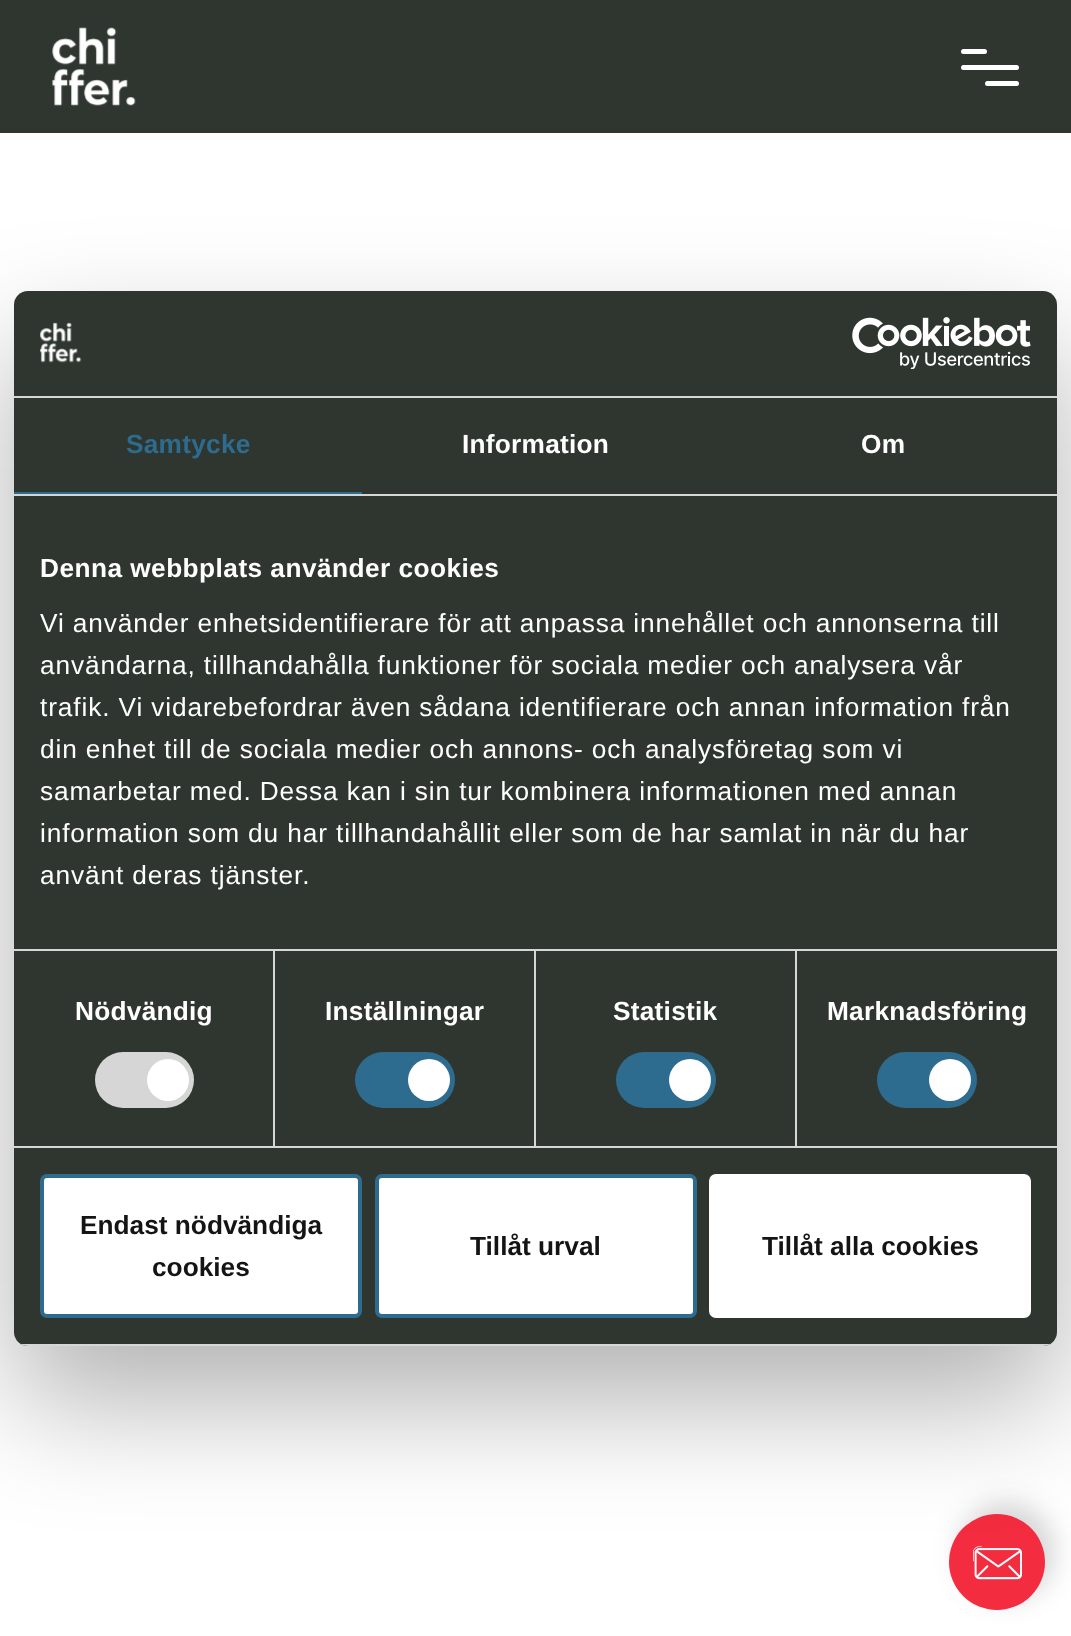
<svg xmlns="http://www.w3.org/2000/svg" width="1071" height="1636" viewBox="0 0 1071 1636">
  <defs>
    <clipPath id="clip1"><rect x="14" y="291" width="1043" height="1055" rx="14"/></clipPath>
  </defs>
  <rect width="100%" height="100%" fill="rgb(255,255,255)"/>
  <rect x="0" y="0" width="1071" height="133" fill="rgb(47,54,48)"/>
  <image x="52" y="27" width="84" height="79" href="pic1.png"/>
  <rect x="961" y="65" width="58" height="5" rx="2.5" fill="rgb(255,255,255)"/>
  <rect x="961" y="49" width="26" height="5" rx="2.5" fill="rgb(255,255,255)"/>
  <rect x="985" y="81" width="34" height="5" rx="2.5" fill="rgb(255,255,255)"/>
  <rect x="959" y="1503" width="96" height="97" rx="48" fill="rgba(50,50,50,0.2)" filter="blur(13px)"/>
  <circle cx="997" cy="1562" r="48" fill="rgb(244,44,63)"/>
  <image x="973" y="1546" width="49" height="34" href="pic4.png"/>
  <rect x="14" y="347" width="1043" height="1055" rx="14" fill="rgba(0,0,0,0.3)" filter="blur(59.5px)"/>
  <rect x="14" y="291" width="1043" height="1055" rx="14" fill="rgb(47,54,48)"/>
  <rect x="14" y="396" width="1043" height="2" fill="rgb(214,214,214)"/>
  <image x="40" y="322" width="42" height="41" href="pic2.png"/>
  <image x="852" y="317" width="179" height="52" href="pic3.png"/>
  <rect x="14" y="494" width="1043" height="2" fill="rgb(214,214,214)"/>
  <rect x="14" y="492" width="348" height="2" fill="rgb(46,108,143)"/>
  <text x="126" y="453" font-family="Liberation Sans" font-size="26.25" font-weight="bold" letter-spacing="0.25" fill="rgb(46,108,143)">Samtycke</text>
  <g font-family="Liberation Sans" font-size="26.25" font-weight="bold" letter-spacing="0.25" fill="rgb(255,255,255)">
    <text x="462" y="453">Information</text>
    <text x="861" y="453">Om</text>
  </g>
  <rect x="273" y="950" width="2" height="196" fill="rgb(214,214,214)"/>
  <rect x="534" y="950" width="2" height="196" fill="rgb(214,214,214)"/>
  <rect x="795" y="950" width="2" height="196" fill="rgb(214,214,214)"/>
  <rect x="14" y="949" width="1043" height="2" fill="rgb(214,214,214)"/>
  <text x="40" y="577" font-family="Liberation Sans" font-size="26.25" font-weight="bold" letter-spacing="0.45" fill="rgb(255,255,255)">Denna webbplats använder cookies</text>
  <g font-family="Liberation Sans" font-size="26.25" letter-spacing="0.88" fill="rgb(255,255,255)">
    <text>
      <tspan x="40" y="632">Vi använder enhetsidentifierare för att anpassa innehållet och annonserna till</tspan>
      <tspan x="40" y="674">användarna, tillhandahålla funktioner för sociala medier och analysera vår</tspan>
      <tspan x="40" y="716">trafik. Vi vidarebefordrar även sådana identifierare och annan information från</tspan>
      <tspan x="40" y="758">din enhet till de sociala medier och annons- och analysföretag som vi</tspan>
      <tspan x="40" y="800">samarbetar med. Dessa kan i sin tur kombinera informationen med annan</tspan>
      <tspan x="40" y="842">information som du har tillhandahållit eller som de har samlat in när du har</tspan>
      <tspan x="40" y="884">använt deras tjänster.</tspan>
    </text>
  </g>
  <rect x="14" y="1146" width="1043" height="2" fill="rgb(214,214,214)"/>
  <text x="75" y="1020" font-family="Liberation Sans" font-size="26.25" font-weight="bold" letter-spacing="0.25" fill="rgb(255,255,255)">Nödvändig</text>
  <rect x="95" y="1052" width="99" height="56" rx="28" fill="rgb(214,214,214)"/>
  <circle cx="168" cy="1080" r="21" fill="rgb(255,255,255)"/>
  <text x="325" y="1020" font-family="Liberation Sans" font-size="26.25" font-weight="bold" letter-spacing="0.25" fill="rgb(255,255,255)">Inställningar</text>
  <rect x="355" y="1052" width="100" height="56" rx="28" fill="rgb(46,108,143)"/>
  <circle cx="429" cy="1080" r="21" fill="rgb(255,255,255)"/>
  <text x="613" y="1020" font-family="Liberation Sans" font-size="26.25" font-weight="bold" letter-spacing="0.25" fill="rgb(255,255,255)">Statistik</text>
  <rect x="616" y="1052" width="100" height="56" rx="28" fill="rgb(46,108,143)"/>
  <circle cx="690" cy="1080" r="21" fill="rgb(255,255,255)"/>
  <text x="827" y="1020" font-family="Liberation Sans" font-size="26.25" font-weight="bold" letter-spacing="0.25" fill="rgb(255,255,255)">Marknadsföring</text>
  <rect x="877" y="1052" width="100" height="56" rx="28" fill="rgb(46,108,143)"/>
  <circle cx="950" cy="1080" r="21" fill="rgb(255,255,255)"/>
  <g clip-path="url(#clip1)">
    <rect x="14" y="1344" width="1043" height="2" fill="rgb(214,214,214)"/>
  </g>
  <rect x="42" y="1176" width="318" height="140" rx="5" fill="rgb(255,255,255)" stroke="rgb(46,108,143)" stroke-width="4"/>
  <g font-family="Liberation Sans" font-size="26.25" font-weight="bold" fill="rgb(20,20,20)">
    <text x="80" y="1234">Endast nödvändiga</text>
    <text x="152" y="1276">cookies</text>
  </g>
  <rect x="377" y="1176" width="318" height="140" rx="5" fill="rgb(255,255,255)" stroke="rgb(46,108,143)" stroke-width="4"/>
  <text x="470" y="1255" font-family="Liberation Sans" font-size="26.25" font-weight="bold" fill="rgb(20,20,20)">Tillåt urval</text>
  <rect x="711" y="1176" width="318" height="140" rx="5" fill="rgb(255,255,255)" stroke="rgb(255,255,255)" stroke-width="4"/>
  <text x="762" y="1255" font-family="Liberation Sans" font-size="26.25" font-weight="bold" fill="rgb(20,20,20)">Tillåt alla cookies</text>
</svg>
